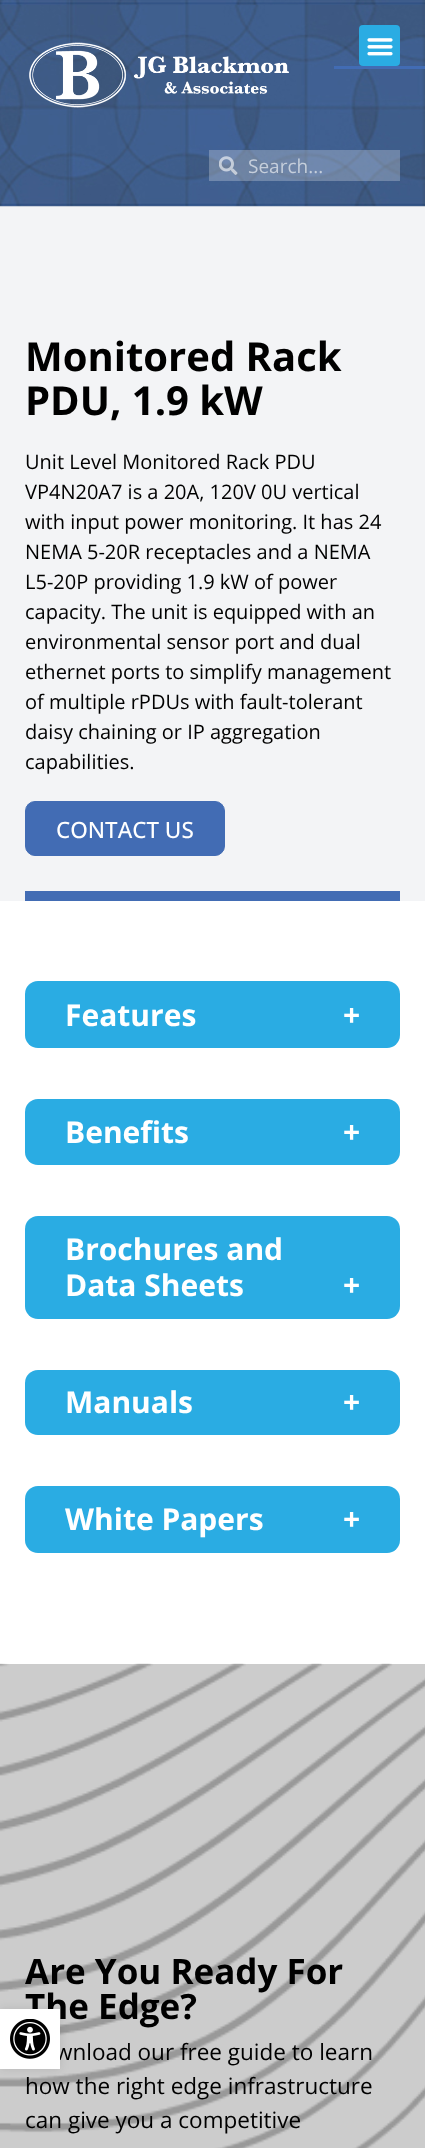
<svg xmlns="http://www.w3.org/2000/svg" width="425" height="2148" viewBox="0 0 425 2148">
  <rect width="100%" height="100%" fill="rgb(255,255,255)"/>
  <rect x="0" y="206" width="425" height="695" fill="rgb(243,244,246)"/>
  <image x="0" y="0" width="425" height="207" href="pic2.png"/>
  <rect x="334" y="66" width="91" height="3" fill="rgb(66,108,180)"/>
  <rect x="359" y="25" width="41" height="41" rx="4" fill="rgb(42,172,227)"/>
  <image x="367" y="38" width="26" height="18" href="pic1.png"/>
  <image x="29" y="42" width="260" height="66" href="pic3.png"/>
  <rect x="209" y="150" width="191" height="31" fill="rgba(255,255,255,0.25)"/>
  <image x="219" y="156" width="19" height="19" href="pic4.png"/>
  <text x="248" y="173" font-family="Open Sans" font-size="19" fill="rgb(197,206,219)">Search...</text>
  <rect x="25" y="891" width="375" height="10" fill="rgb(66,108,180)"/>
  <g font-family="Open Sans" font-size="40" font-weight="bold" fill="rgb(0,0,0)">
    <text>
      <tspan x="25" y="371">Monitored Rack</tspan>
      <tspan x="25" y="415">PDU, 1.9 kW</tspan>
    </text>
  </g>
  <g font-family="Open Sans" font-size="20" fill="rgb(0,0,0)">
    <text>
      <tspan x="25" y="469">Unit Level Monitored Rack PDU</tspan>
      <tspan x="25" y="499">VP4N20A7 is a 20A, 120V 0U vertical</tspan>
      <tspan x="25" y="529">with input power monitoring. It has 24</tspan>
      <tspan x="25" y="559">NEMA 5-20R receptacles and a NEMA</tspan>
      <tspan x="25" y="589">L5-20P providing 1.9 kW of power</tspan>
      <tspan x="25" y="619">capacity. The unit is equipped with an</tspan>
      <tspan x="25" y="649">environmental sensor port and dual</tspan>
      <tspan x="25" y="679">ethernet ports to simplify management</tspan>
      <tspan x="25" y="709">of multiple rPDUs with fault-tolerant</tspan>
      <tspan x="25" y="739">daisy chaining or IP aggregation</tspan>
      <tspan x="25" y="769">capabilities.</tspan>
    </text>
  </g>
  <rect x="25.5" y="801.5" width="199" height="54" rx="9.5" fill="rgb(66,108,180)" stroke="rgb(66,108,180)"/>
  <text x="56" y="838" font-family="Open Sans" font-size="22.5" font-weight="500" fill="rgb(255,255,255)">CONTACT US</text>
  <rect x="25" y="981" width="375" height="67" rx="13" fill="rgb(42,172,227)"/>
  <g font-family="Open Sans" font-size="30" font-weight="bold" fill="rgb(255,255,255)">
    <text x="65" y="1026">Features</text>
    <text x="343" y="1026">+</text>
  </g>
  <rect x="25" y="1099" width="375" height="66" rx="13" fill="rgb(42,172,227)"/>
  <g font-family="Open Sans" font-size="30" font-weight="bold" fill="rgb(255,255,255)">
    <text x="65" y="1143">Benefits</text>
    <text x="343" y="1143">+</text>
  </g>
  <rect x="25" y="1216" width="375" height="103" rx="13" fill="rgb(42,172,227)"/>
  <g font-family="Open Sans" font-size="30" font-weight="bold" fill="rgb(255,255,255)">
    <text>
      <tspan x="65" y="1260">Brochures and</tspan>
      <tspan x="65" y="1296">Data Sheets</tspan>
    </text>
    <text x="343" y="1296">+</text>
  </g>
  <rect x="25" y="1370" width="375" height="65" rx="13" fill="rgb(42,172,227)"/>
  <g font-family="Open Sans" font-size="30" font-weight="bold" fill="rgb(255,255,255)">
    <text x="65" y="1413">Manuals</text>
    <text x="343" y="1413">+</text>
  </g>
  <rect x="25" y="1486" width="375" height="67" rx="13" fill="rgb(42,172,227)"/>
  <g font-family="Open Sans" font-size="30" font-weight="bold" fill="rgb(255,255,255)">
    <text x="65" y="1530">White Papers</text>
    <text x="343" y="1530">+</text>
  </g>
  <rect x="0" y="1664" width="425" height="484" fill="rgb(204,204,204)"/>
  <image x="0" y="1663" width="425" height="485" href="pic5.png"/>
  <g font-family="Open Sans" font-size="35" font-weight="bold" fill="rgb(0,0,0)">
    <text>
      <tspan x="25" y="1984">Are You Ready For</tspan>
      <tspan x="25" y="2019">The Edge?</tspan>
    </text>
  </g>
  <g font-family="Open Sans" font-size="22.5" fill="rgb(0,0,0)">
    <text x="55" y="2060">wnload our free guide to learn</text>
    <text>
      <tspan x="25" y="2094">how the right edge infrastructure</tspan>
      <tspan x="25" y="2128">can give you a competitive</tspan>
    </text>
  </g>
  <rect x="0" y="2009" width="60" height="60" fill="rgba(0,0,0,0.1)" filter="blur(5px)"/>
  <rect x="0" y="2009" width="60" height="60" fill="rgb(255,255,255)"/>
  <image x="10" y="2019" width="40" height="40" href="pic6.png"/>
</svg>
